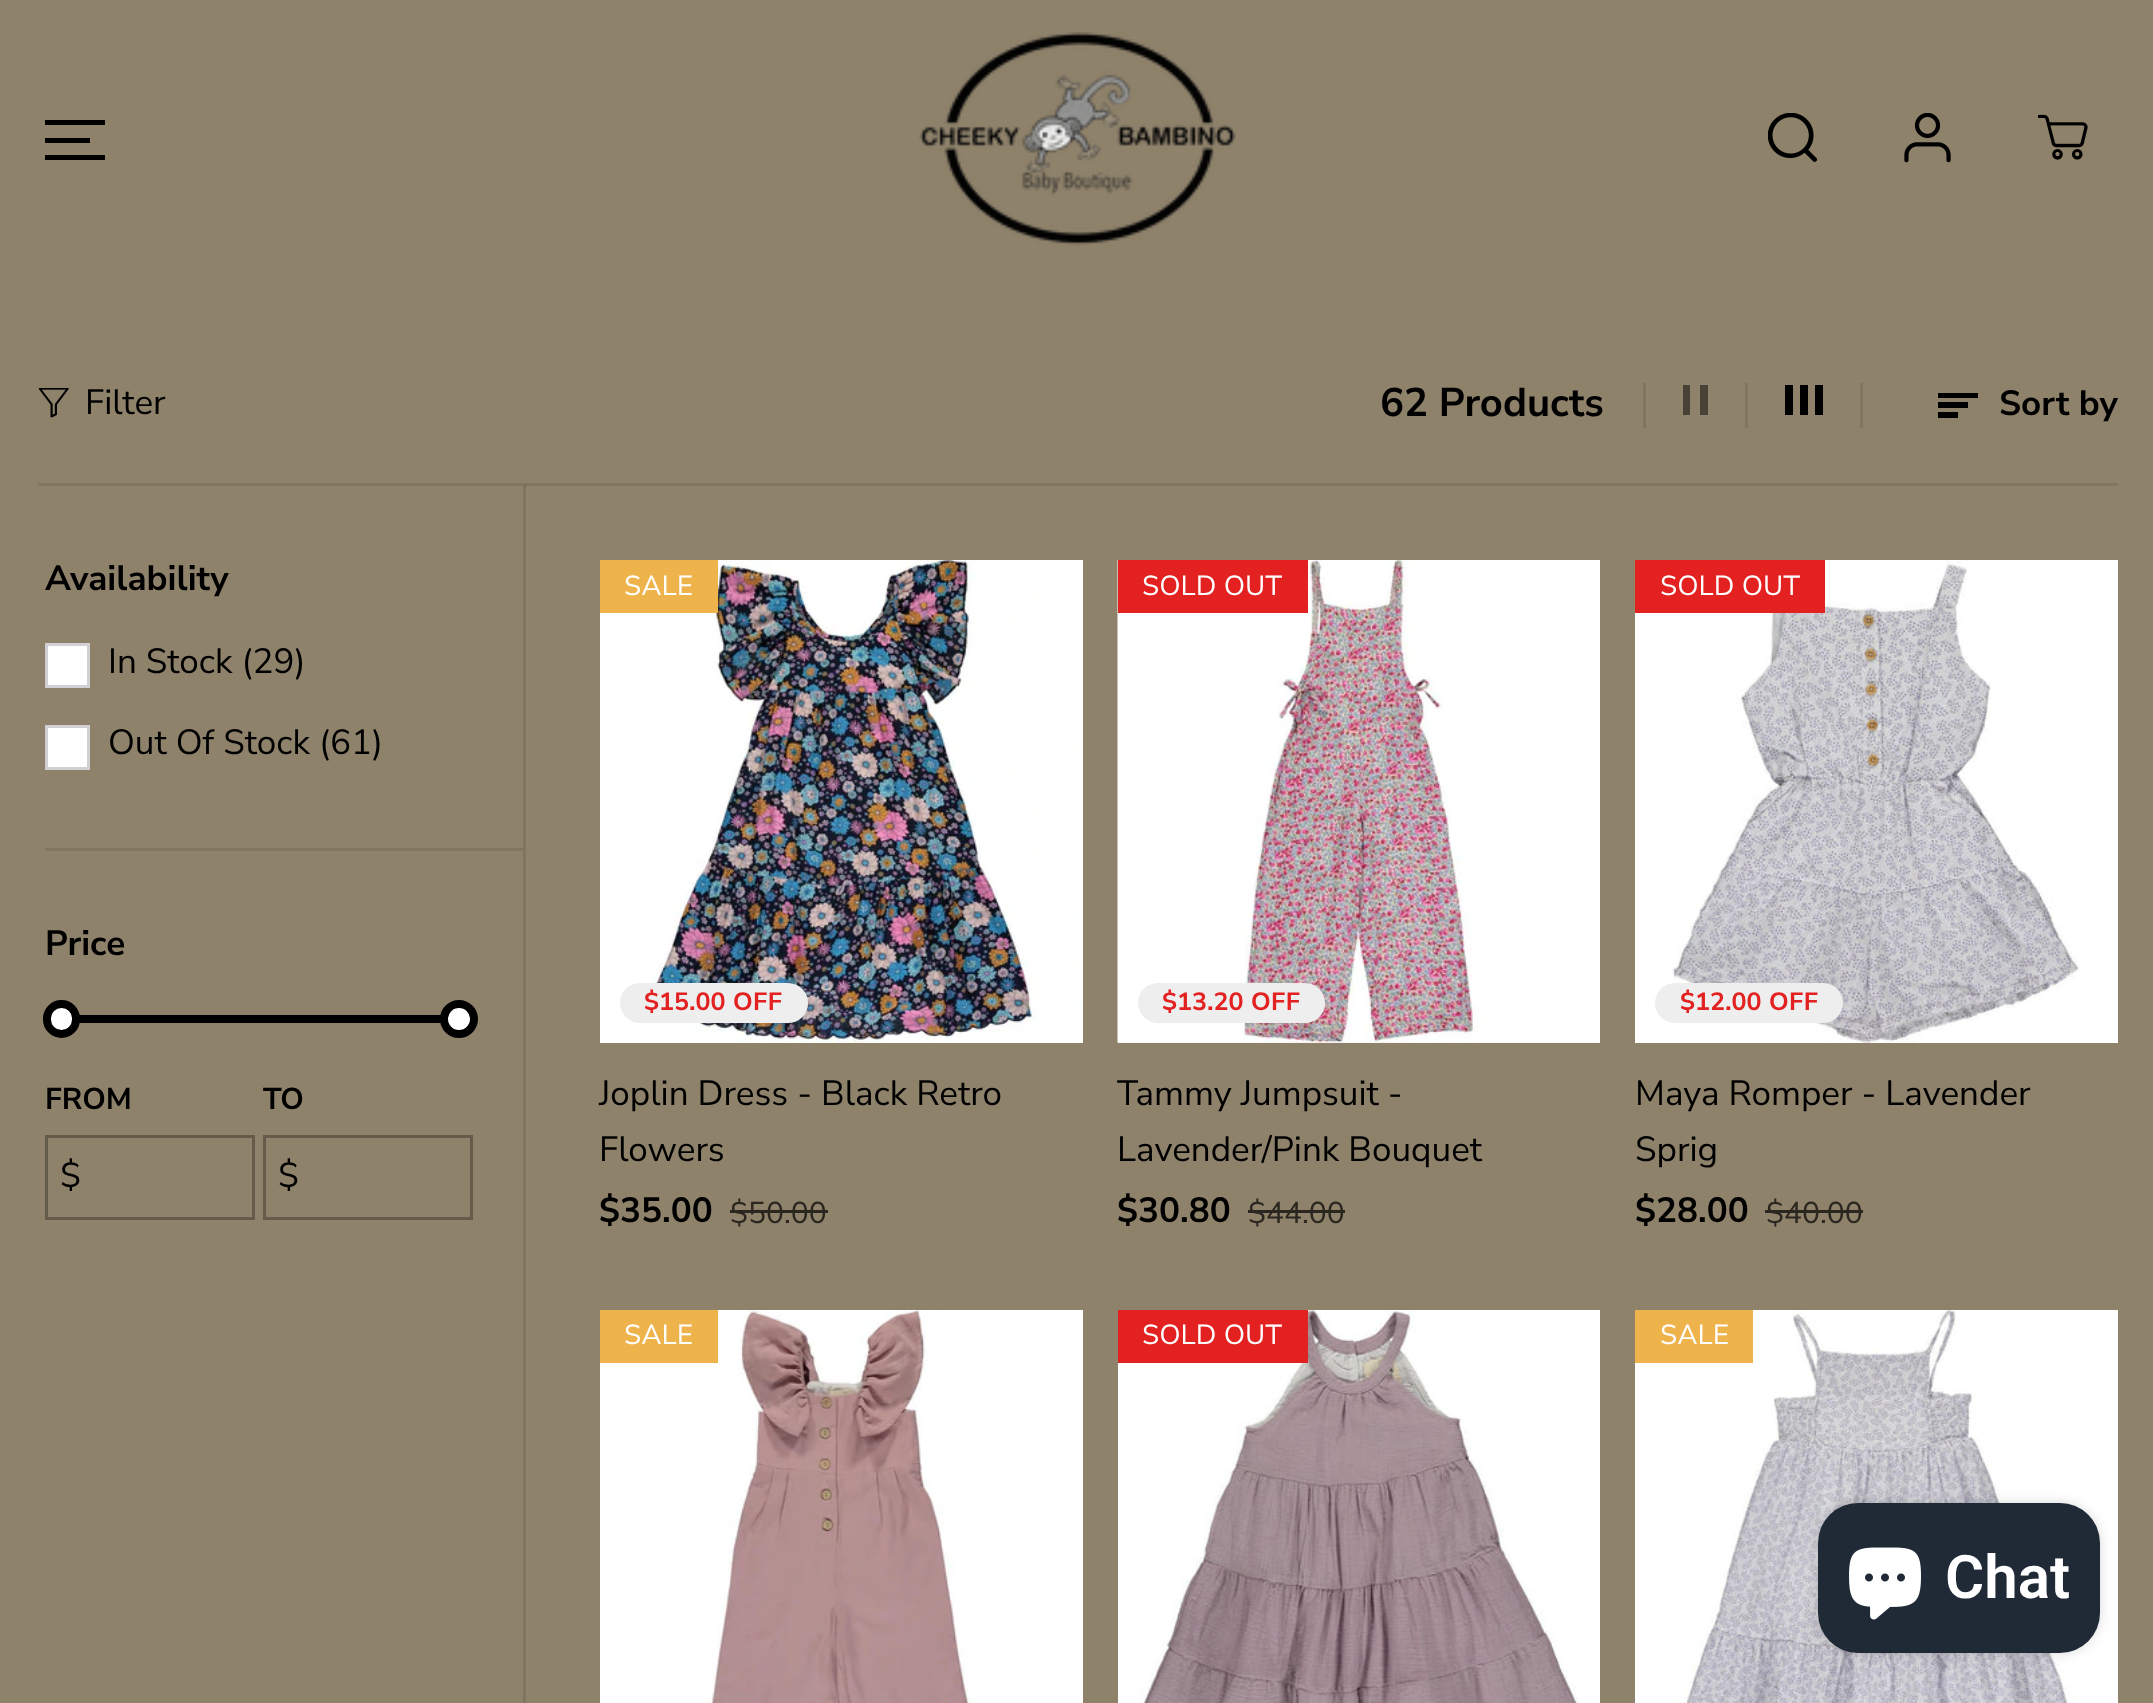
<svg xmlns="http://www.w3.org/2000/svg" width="2153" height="1703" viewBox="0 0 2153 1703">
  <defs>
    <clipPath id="clip1"><rect x="1938" y="393" width="40" height="25"/></clipPath>
  </defs>
  <rect width="100%" height="100%" fill="rgb(143,130,107)"/>
  <rect x="523" y="485" width="3" height="1218" fill="rgb(129,117,96)"/>
  <rect x="45" y="120" width="60" height="5" fill="rgb(0,0,0)"/>
  <rect x="45" y="138" width="45" height="5" fill="rgb(0,0,0)"/>
  <rect x="45" y="155" width="60" height="5" fill="rgb(0,0,0)"/>
  <image x="919" y="32" width="317" height="214" href="pic1.png"/>
  <image x="1768" y="113" width="49" height="49" href="pic2.png"/>
  <image x="1904" y="113" width="47" height="50" href="pic3.png"/>
  <image x="2038" y="114" width="50" height="46" href="pic4.png"/>
  <rect x="38" y="483" width="2080" height="3" fill="rgb(129,117,96)"/>
  <rect x="523" y="485" width="3" height="1" fill="rgb(116,105,86)"/>
  <image x="38" y="388" width="31" height="30" href="pic5.png"/>
  <text x="85" y="414" font-family="Nunito Sans" font-size="35" fill="rgb(0,0,0)">Filter</text>
  <text x="1380" y="416" font-family="Nunito Sans" font-size="40" font-weight="bold" fill="rgb(0,0,0)">62 Products</text>
  <rect x="1745" y="383" width="3" height="45" fill="rgb(129,117,96)"/>
  <rect x="1643" y="383" width="3" height="45" fill="rgb(129,117,96)"/>
  <rect x="1683" y="385" width="7" height="30" fill="rgb(72,65,54)"/>
  <rect x="1700" y="385" width="8" height="30" fill="rgb(72,65,54)"/>
  <rect x="1860" y="383" width="3" height="45" fill="rgb(129,117,96)"/>
  <rect x="1785" y="385" width="8" height="30" fill="rgb(0,0,0)"/>
  <rect x="1800" y="385" width="8" height="30" fill="rgb(0,0,0)"/>
  <rect x="1815" y="385" width="8" height="30" fill="rgb(0,0,0)"/>
  <g clip-path="url(#clip1)">
    <path d="M1938 392H1978V398H1938ZM1938 402H1968V408H1938ZM1938 412H1958V418H1938Z" fill="rgb(0,0,0)"/>
  </g>
  <text x="1999" y="415" font-family="Nunito Sans" font-size="35" font-weight="bold" fill="rgb(0,0,0)">Sort by</text>
  <rect x="45" y="848" width="478" height="3" fill="rgb(129,117,96)"/>
  <text x="45" y="590" font-family="Nunito Sans" font-size="35" font-weight="bold" fill="rgb(0,0,0)">Availability</text>
  <rect x="46.5" y="644.5" width="42" height="42" fill="rgb(255,255,255)" stroke="rgb(210,207,213)" stroke-width="3"/>
  <text x="108" y="673" font-family="Nunito Sans" font-size="35" fill="rgb(0,0,0)">In Stock (29)</text>
  <rect x="46.5" y="726.5" width="42" height="42" fill="rgb(255,255,255)" stroke="rgb(210,207,213)" stroke-width="3"/>
  <text x="108" y="754" font-family="Nunito Sans" font-size="35" fill="rgb(0,0,0)">Out Of Stock (61)</text>
  <text x="45" y="955" font-family="Nunito Sans" font-size="35" font-weight="bold" fill="rgb(0,0,0)">Price</text>
  <rect x="79" y="1015" width="362" height="8" fill="rgb(0,0,0)"/>
  <rect x="47" y="1004" width="29" height="30" rx="14.5" fill="rgb(255,255,255)" stroke="rgb(0,0,0)" stroke-width="8"/>
  <circle cx="459" cy="1019" r="15" fill="rgb(255,255,255)" stroke="rgb(0,0,0)" stroke-width="8"/>
  <text x="45" y="1109" font-family="Nunito Sans" font-size="30" font-weight="bold" fill="rgb(0,0,0)">FROM</text>
  <rect x="46.5" y="1136.5" width="207" height="82" fill="none" stroke="rgb(100,91,75)" stroke-width="3"/>
  <text x="60" y="1187" font-family="Nunito Sans" font-size="35" fill="rgb(0,0,0)">$</text>
  <text x="263" y="1109" font-family="Nunito Sans" font-size="30" font-weight="bold" fill="rgb(0,0,0)">TO</text>
  <rect x="264.5" y="1136.5" width="207" height="82" fill="none" stroke="rgb(100,91,75)" stroke-width="3"/>
  <text x="278" y="1187" font-family="Nunito Sans" font-size="35" fill="rgb(0,0,0)">$</text>
  <image x="600" y="560" width="483" height="483" href="pic6.png"/>
  <rect x="600" y="560" width="118" height="53" fill="rgb(239,179,76)"/>
  <text x="624" y="595" font-family="'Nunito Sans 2'" font-size="27.5" fill="rgb(255,255,255)">SALE</text>
  <rect x="620" y="983" width="188" height="40" rx="20" fill="rgb(238,238,238)"/>
  <text x="644" y="1010" font-family="'Nunito Sans 2'" font-size="25" font-weight="bold" fill="rgb(226,33,32)">$15.00 OFF</text>
  <g font-family="Nunito Sans" font-size="35" fill="rgb(0,0,0)">
    <text>
      <tspan x="599" y="1105">Joplin Dress - Black Retro</tspan>
      <tspan x="599" y="1161">Flowers</tspan>
    </text>
  </g>
  <text x="599" y="1222" font-family="Nunito Sans" font-size="35" font-weight="bold" fill="rgb(0,0,0)">$35.00</text>
  <text x="730" y="1223" font-family="Nunito Sans" font-size="30" fill="rgb(43,39,32)">$50.00</text>
  <rect x="730" y="1210" width="98" height="3" fill="rgb(43,39,32)"/>
  <rect x="1118" y="1042" width="482" height="1" fill="rgb(243,239,236)"/>
  <image x="1117" y="560" width="483" height="483" href="pic7.png"/>
  <rect x="1118" y="560" width="190" height="53" fill="rgb(226,33,32)"/>
  <text x="1142" y="595" font-family="'Nunito Sans 2'" font-size="27.5" fill="rgb(255,255,255)">SOLD OUT</text>
  <rect x="1138" y="983" width="187" height="40" rx="20" fill="rgb(238,238,238)"/>
  <text x="1162" y="1010" font-family="'Nunito Sans 2'" font-size="25" font-weight="bold" fill="rgb(226,33,32)">$13.20 OFF</text>
  <g font-family="Nunito Sans" font-size="35" fill="rgb(0,0,0)">
    <text>
      <tspan x="1117" y="1105">Tammy Jumpsuit -</tspan>
      <tspan x="1117" y="1161">Lavender/Pink Bouquet</tspan>
    </text>
  </g>
  <text x="1117" y="1222" font-family="Nunito Sans" font-size="35" font-weight="bold" fill="rgb(0,0,0)">$30.80</text>
  <text x="1248" y="1223" font-family="Nunito Sans" font-size="30" fill="rgb(43,39,32)">$44.00</text>
  <rect x="1248" y="1210" width="97" height="3" fill="rgb(43,39,32)"/>
  <image x="1635" y="560" width="483" height="483" href="pic8.png"/>
  <rect x="1635" y="560" width="190" height="53" fill="rgb(226,33,32)"/>
  <text x="1660" y="595" font-family="'Nunito Sans 2'" font-size="27.5" fill="rgb(255,255,255)">SOLD OUT</text>
  <rect x="1655" y="983" width="188" height="40" rx="20" fill="rgb(238,238,238)"/>
  <text x="1680" y="1010" font-family="'Nunito Sans 2'" font-size="25" font-weight="bold" fill="rgb(226,33,32)">$12.00 OFF</text>
  <g font-family="Nunito Sans" font-size="35" fill="rgb(0,0,0)">
    <text>
      <tspan x="1635" y="1105">Maya Romper - Lavender</tspan>
      <tspan x="1635" y="1161">Sprig</tspan>
    </text>
  </g>
  <text x="1635" y="1222" font-family="Nunito Sans" font-size="35" font-weight="bold" fill="rgb(0,0,0)">$28.00</text>
  <text x="1766" y="1223" font-family="Nunito Sans" font-size="30" fill="rgb(43,39,32)">$40.00</text>
  <rect x="1765" y="1210" width="98" height="3" fill="rgb(43,39,32)"/>
  <image x="600" y="1310" width="483" height="393" href="pic9.png"/>
  <rect x="600" y="1310" width="118" height="53" fill="rgb(239,179,76)"/>
  <text x="624" y="1344" font-family="'Nunito Sans 2'" font-size="27.5" fill="rgb(255,255,255)">SALE</text>
  <image x="1118" y="1310" width="482" height="393" href="pic10.png"/>
  <rect x="1118" y="1310" width="190" height="53" fill="rgb(226,33,32)"/>
  <text x="1142" y="1344" font-family="'Nunito Sans 2'" font-size="27.5" fill="rgb(255,255,255)">SOLD OUT</text>
  <image x="1635" y="1310" width="483" height="393" href="pic11.png"/>
  <rect x="1635" y="1310" width="118" height="53" fill="rgb(239,179,76)"/>
  <text x="1660" y="1344" font-family="'Nunito Sans 2'" font-size="27.5" fill="rgb(255,255,255)">SALE</text>
  <rect x="1818" y="1503" width="282" height="150" rx="40" fill="rgba(0,0,0,0.15)" filter="blur(6px)"/>
  <rect x="1818" y="1503" width="282" height="150" rx="40" fill="rgb(32,42,54)"/>
  <image x="1849" y="1547" width="72" height="73" href="pic12.png"/>
  <text x="1945" y="1598" font-family="Roboto" font-size="60" font-weight="600" fill="rgb(255,255,255)">Chat</text>
</svg>
